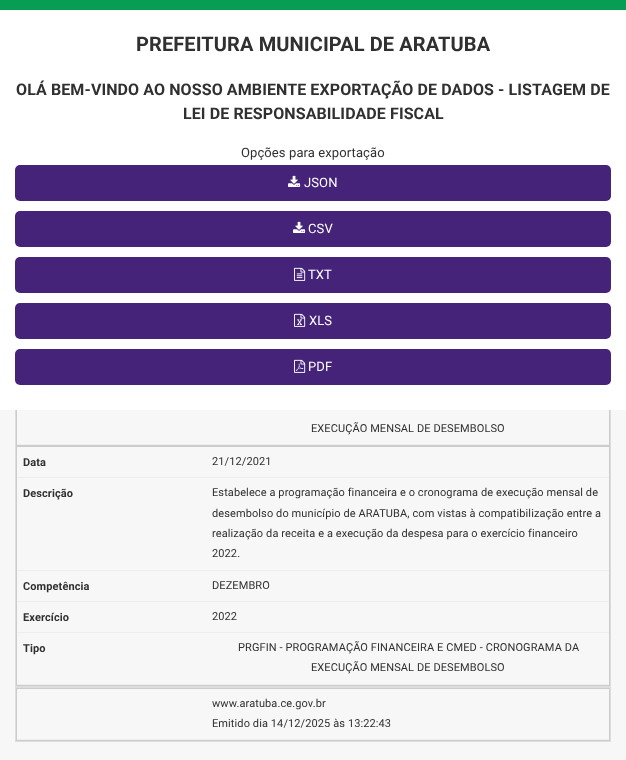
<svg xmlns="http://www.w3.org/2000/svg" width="626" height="760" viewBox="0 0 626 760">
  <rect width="100%" height="100%" fill="rgb(247,247,247)"/>
  <rect x="16.5" y="206.5" width="593" height="239" fill="none" stroke="rgb(204,204,204)"/>
  <rect x="0" y="10" width="626" height="400" fill="rgb(255,255,255)"/>
  <rect x="0" y="0" width="626" height="10" fill="rgb(7,158,83)"/>
  <text x="136" y="51" font-family="Roboto" font-size="20" font-weight="bold" letter-spacing="0.1" fill="rgb(48,48,48)">PREFEITURA MUNICIPAL DE ARATUBA</text>
  <g font-family="Roboto" font-size="16" font-weight="bold" letter-spacing="0.1" fill="rgb(48,48,48)">
    <text x="16" y="95">OLÁ BEM-VINDO AO NOSSO AMBIENTE EXPORTAÇÃO DE DADOS - LISTAGEM DE</text>
    <text x="183" y="119">LEI DE RESPONSABILIDADE FISCAL</text>
  </g>
  <text x="241" y="157" font-family="Roboto" font-size="13" letter-spacing="0.1" fill="rgb(48,48,48)">Opções para exportação</text>
  <rect x="15" y="165" width="596" height="36" rx="5" fill="rgb(69,35,120)"/>
  <image x="288" y="175" width="13" height="12" href="pic1.png"/>
  <text x="304" y="187" font-family="Roboto" font-size="13" letter-spacing="0.1" fill="rgb(255,255,255)">JSON</text>
  <rect x="15" y="211" width="596" height="36" rx="5" fill="rgb(69,35,120)"/>
  <image x="293" y="221" width="13" height="12" href="pic1.png"/>
  <text x="308" y="233" font-family="Roboto" font-size="13" letter-spacing="0.1" fill="rgb(255,255,255)">CSV</text>
  <rect x="15" y="257" width="596" height="36" rx="5" fill="rgb(69,35,120)"/>
  <image x="294" y="267" width="12" height="14" href="pic2.png"/>
  <text x="308" y="279" font-family="Roboto" font-size="13" letter-spacing="0.1" fill="rgb(255,255,255)">TXT</text>
  <rect x="15" y="303" width="596" height="36" rx="5" fill="rgb(69,35,120)"/>
  <image x="294" y="313" width="12" height="14" href="pic3.png"/>
  <text x="309" y="325" font-family="Roboto" font-size="13" letter-spacing="0.1" fill="rgb(255,255,255)">XLS</text>
  <rect x="15" y="349" width="596" height="36" rx="5" fill="rgb(69,35,120)"/>
  <image x="294" y="359" width="12" height="14" href="pic4.png"/>
  <text x="308" y="371" font-family="Roboto" font-size="13" letter-spacing="0.1" fill="rgb(255,255,255)">PDF</text>
  <rect x="610" y="410" width="1" height="332" fill="rgb(221,221,221)"/>
  <rect x="15" y="741" width="596" height="1" fill="rgb(221,221,221)"/>
  <rect x="15" y="410" width="1" height="332" fill="rgb(221,221,221)"/>
  <rect x="17" y="444" width="592" height="1" fill="rgb(238,238,238)"/>
  <text x="311" y="432" font-family="Roboto" font-size="11" letter-spacing="0.1" fill="rgb(48,48,48)">EXECUÇÃO MENSAL DE DESEMBOLSO</text>
  <rect x="16.5" y="446.5" width="593" height="239" fill="none" stroke="rgb(204,204,204)"/>
  <rect x="17" y="477" width="592" height="1" fill="rgb(238,238,238)"/>
  <text x="23" y="466" font-family="Roboto" font-size="11" font-weight="bold" letter-spacing="0.1" fill="rgb(48,48,48)">Data</text>
  <text x="212" y="465" font-family="Roboto" font-size="11" letter-spacing="0.1" fill="rgb(48,48,48)">21/12/2021</text>
  <rect x="17" y="570" width="592" height="1" fill="rgb(238,238,238)"/>
  <text x="23" y="497" font-family="Roboto" font-size="11" font-weight="bold" letter-spacing="0.1" fill="rgb(48,48,48)">Descrição</text>
  <g font-family="Roboto" font-size="11" letter-spacing="0.1" fill="rgb(48,48,48)">
    <text>
      <tspan x="212" y="496">Estabelece a programação financeira e o cronograma de execução mensal de</tspan>
      <tspan x="212" y="517">desembolso do município de ARATUBA, com vistas à compatibilização entre a</tspan>
      <tspan x="212" y="537">realização da receita e a execução da despesa para o exercício financeiro</tspan>
      <tspan x="212" y="557">2022.</tspan>
    </text>
  </g>
  <rect x="17" y="601" width="592" height="1" fill="rgb(238,238,238)"/>
  <text x="23" y="590" font-family="Roboto" font-size="11" font-weight="bold" letter-spacing="0.1" fill="rgb(48,48,48)">Competência</text>
  <text x="212" y="589" font-family="Roboto" font-size="11" letter-spacing="0.1" fill="rgb(48,48,48)">DEZEMBRO</text>
  <rect x="17" y="632" width="592" height="1" fill="rgb(238,238,238)"/>
  <text x="23" y="621" font-family="Roboto" font-size="11" font-weight="bold" letter-spacing="0.1" fill="rgb(48,48,48)">Exercício</text>
  <text x="212" y="620" font-family="Roboto" font-size="11" letter-spacing="0.1" fill="rgb(48,48,48)">2022</text>
  <rect x="17" y="684" width="592" height="1" fill="rgb(238,238,238)"/>
  <text x="23" y="652" font-family="Roboto" font-size="11" font-weight="bold" letter-spacing="0.1" fill="rgb(48,48,48)">Tipo</text>
  <g font-family="Roboto" font-size="11" letter-spacing="0.1" fill="rgb(48,48,48)">
    <text x="238" y="651">PRGFIN - PROGRAMAÇÃO FINANCEIRA E CMED - CRONOGRAMA DA</text>
    <text x="311" y="671">EXECUÇÃO MENSAL DE DESEMBOLSO</text>
  </g>
  <rect x="16" y="686" width="594" height="2" fill="rgb(221,221,221)"/>
  <rect x="16.5" y="688.5" width="593" height="52" fill="none" stroke="rgb(204,204,204)"/>
  <rect x="17" y="739" width="592" height="1" fill="rgb(238,238,238)"/>
  <g font-family="Roboto" font-size="11" letter-spacing="0.1" fill="rgb(48,48,48)">
    <text>
      <tspan x="212" y="707">www.aratuba.ce.gov.br</tspan>
      <tspan x="212" y="727">Emitido dia 14/12/2025 às 13:22:43</tspan>
    </text>
  </g>
</svg>
